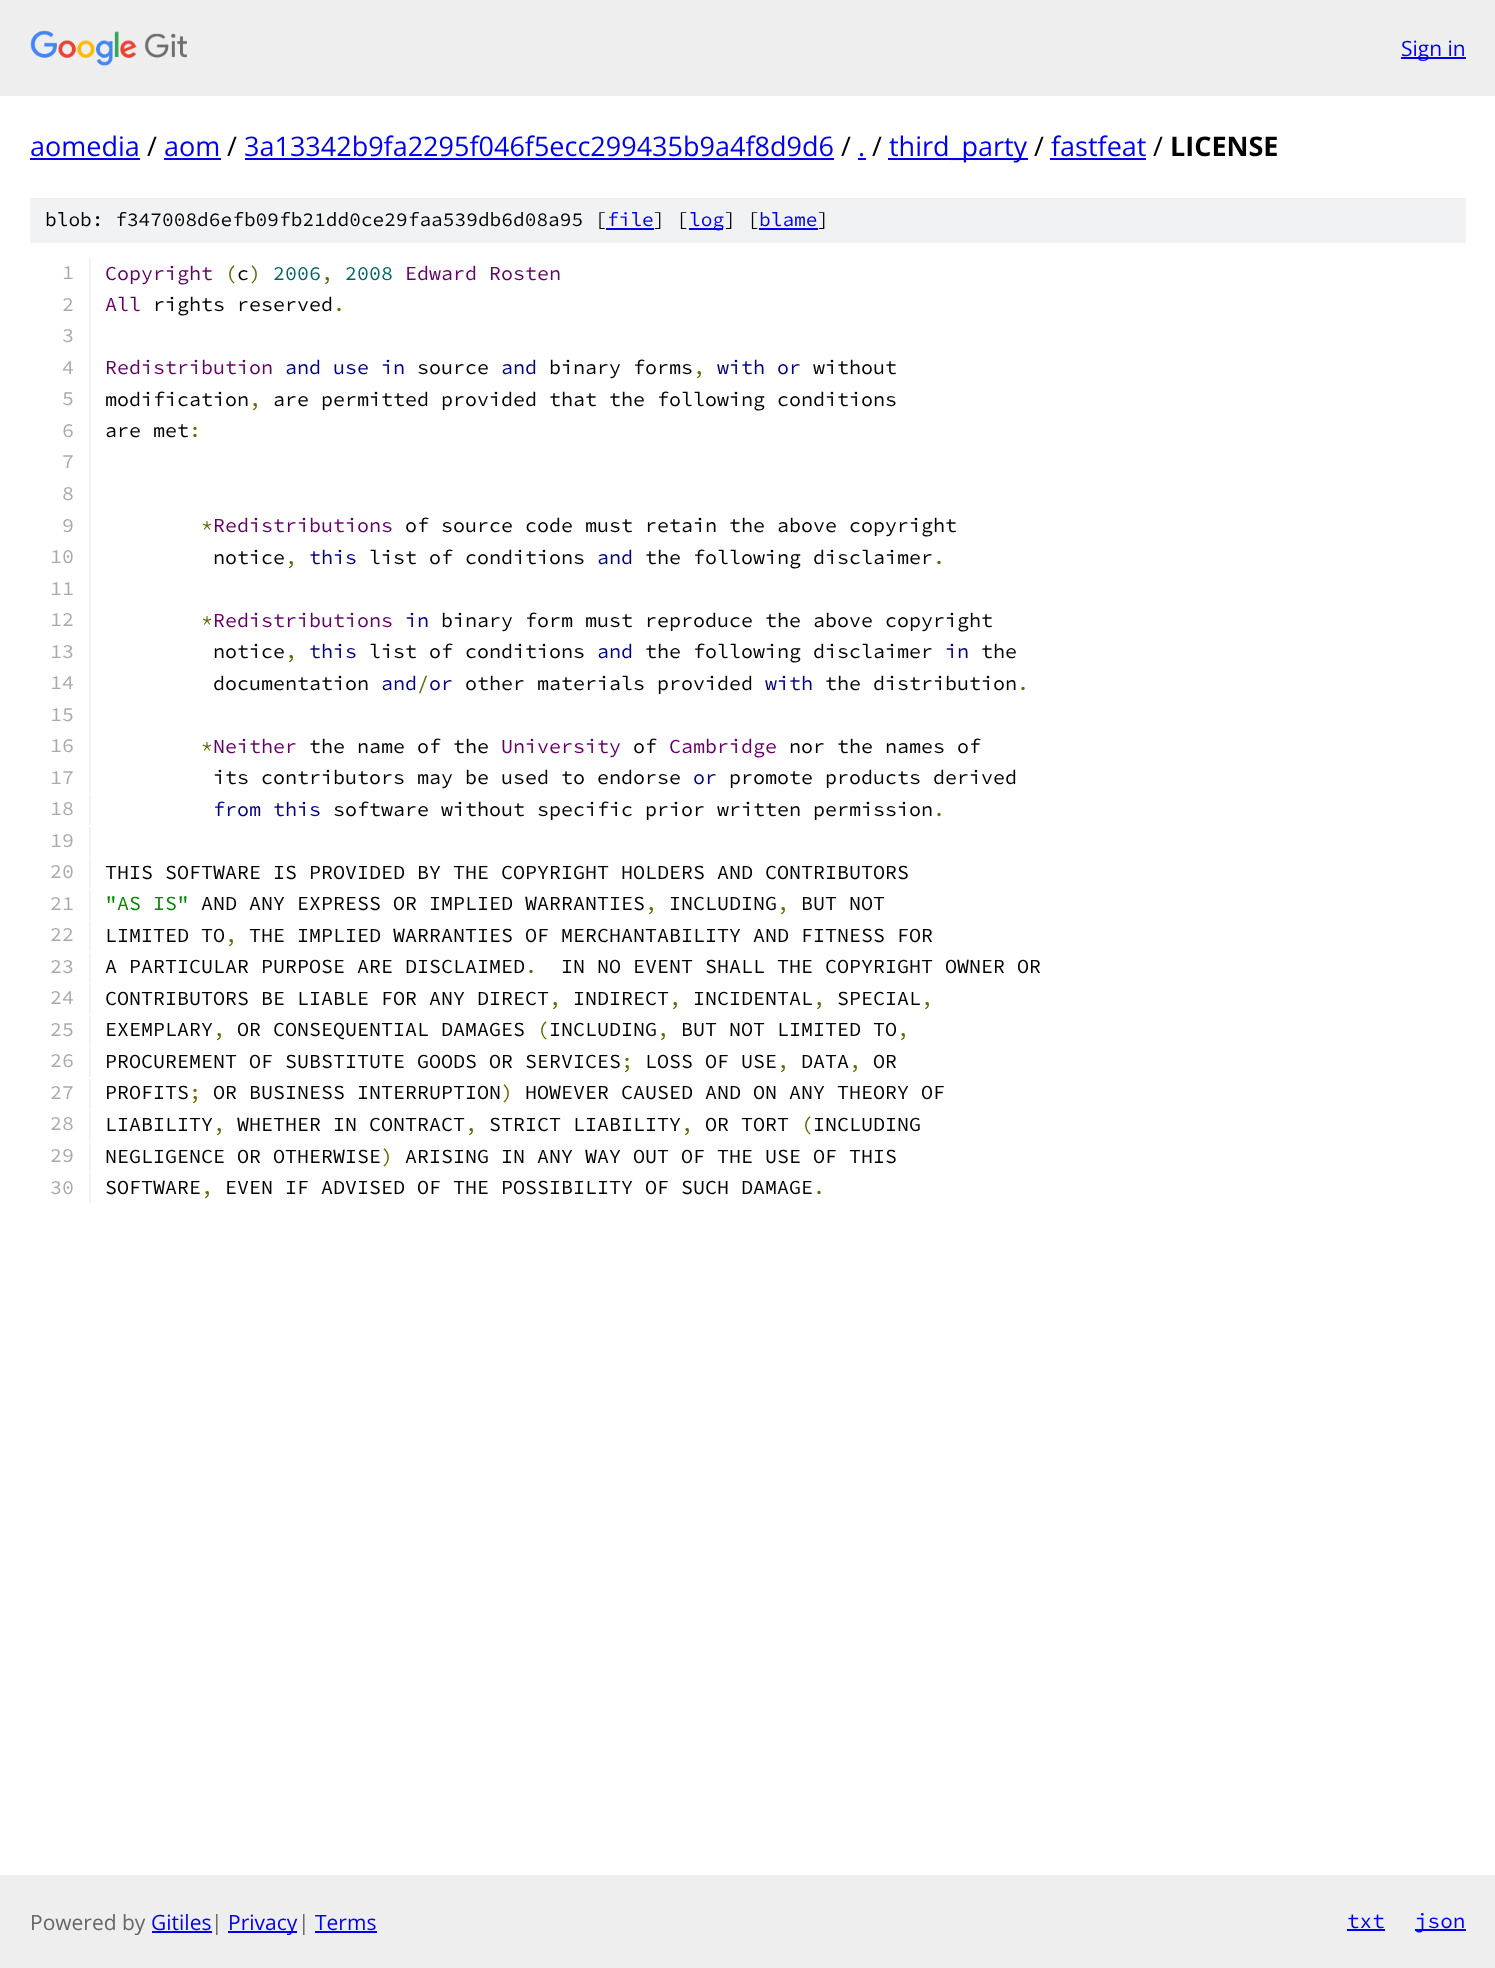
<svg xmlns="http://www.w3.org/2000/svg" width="1495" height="1968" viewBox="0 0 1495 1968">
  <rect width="100%" height="100%" fill="rgb(255,255,255)"/>
  <rect x="0" y="0" width="1495" height="96" fill="rgb(238,238,238)"/>
  <image x="30" y="30" width="157" height="36" href="pic1.png"/>
  <rect x="1401" y="57" width="65" height="2" fill="rgb(0,0,238)"/>
  <text x="1401" y="56" font-family="Open Sans" font-size="21" fill="rgb(0,0,238)">Sign in</text>
  <text x="30" y="156" font-family="Open Sans" font-size="27" fill="rgb(0,0,238)">aomedia</text>
  <rect x="30" y="158" width="110" height="2" fill="rgb(0,0,238)"/>
  <text x="147" y="156" font-family="Open Sans" font-size="27" fill="rgb(0,0,0)">/</text>
  <text x="164" y="156" font-family="Open Sans" font-size="27" fill="rgb(0,0,238)">aom</text>
  <rect x="164" y="158" width="57" height="2" fill="rgb(0,0,238)"/>
  <text x="227" y="156" font-family="Open Sans" font-size="27" fill="rgb(0,0,0)">/</text>
  <text x="244" y="156" font-family="Open Sans" font-size="27" fill="rgb(0,0,238)">3a13342b9fa2295f046f5ecc299435b9a4f8d9d6</text>
  <rect x="245" y="158" width="589" height="2" fill="rgb(0,0,238)"/>
  <text x="841" y="156" font-family="Open Sans" font-size="27" fill="rgb(0,0,0)">/</text>
  <text x="858" y="156" font-family="Open Sans" font-size="27" fill="rgb(0,0,238)">.</text>
  <rect x="858" y="158" width="8" height="2" fill="rgb(0,0,238)"/>
  <text x="872" y="156" font-family="Open Sans" font-size="27" fill="rgb(0,0,0)">/</text>
  <rect x="888" y="158" width="140" height="2" fill="rgb(0,0,238)"/>
  <text x="889" y="156" font-family="Open Sans" font-size="27" fill="rgb(0,0,238)">third_party</text>
  <text x="1034" y="156" font-family="Open Sans" font-size="27" fill="rgb(0,0,0)">/</text>
  <text x="1051" y="156" font-family="Open Sans" font-size="27" fill="rgb(0,0,238)">fastfeat</text>
  <rect x="1050" y="158" width="96" height="2" fill="rgb(0,0,238)"/>
  <text x="1153" y="156" font-family="Open Sans" font-size="27" fill="rgb(0,0,0)">/</text>
  <text x="1170" y="156" font-family="Open Sans" font-size="27" font-weight="bold" fill="rgb(0,0,0)">LICENSE</text>
  <rect x="30" y="198" width="1436" height="45" fill="rgb(241,242,243)"/>
  <text x="45" y="226" font-family="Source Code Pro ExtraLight" font-size="19.5" font-weight="200" fill="rgb(0,0,0)">blob: f347008d6efb09fb21dd0ce29faa539db6d08a95 [</text>
  <text x="607" y="226" font-family="Source Code Pro ExtraLight" font-size="19.5" font-weight="200" fill="rgb(0,0,238)">file</text>
  <rect x="606" y="228" width="48" height="2" fill="rgb(0,0,238)"/>
  <text x="653" y="226" font-family="Source Code Pro ExtraLight" font-size="19.5" font-weight="200" fill="rgb(0,0,0)">] [</text>
  <rect x="689" y="228" width="34" height="2" fill="rgb(0,0,238)"/>
  <text x="689" y="226" font-family="Source Code Pro ExtraLight" font-size="19.5" font-weight="200" fill="rgb(0,0,238)">log</text>
  <text x="724" y="226" font-family="Source Code Pro ExtraLight" font-size="19.5" font-weight="200" fill="rgb(0,0,0)">] [</text>
  <text x="759" y="226" font-family="Source Code Pro ExtraLight" font-size="19.5" font-weight="200" fill="rgb(0,0,238)">blame</text>
  <rect x="759" y="228" width="59" height="2" fill="rgb(0,0,238)"/>
  <text x="817" y="226" font-family="Source Code Pro ExtraLight" font-size="19.5" font-weight="200" fill="rgb(0,0,0)">]</text>
  <rect x="89" y="258" width="2" height="536" fill="rgb(241,242,243)"/>
  <text x="62" y="279" font-family="Source Code Pro ExtraLight" font-size="20" font-weight="200" fill="rgb(170,170,170)">1</text>
  <text x="105" y="280" font-family="Source Code Pro ExtraLight" font-size="20" font-weight="200" fill="rgb(102,0,102)">Copyright</text>
  <text x="225" y="280" font-family="Source Code Pro ExtraLight" font-size="20" font-weight="200" fill="rgb(102,102,0)">( )</text>
  <g font-family="Source Code Pro ExtraLight" font-size="20" font-weight="200" fill="rgb(0,102,102)">
    <text x="273" y="280">2006</text>
    <text x="345" y="280">2008</text>
  </g>
  <text x="405" y="280" font-family="Source Code Pro ExtraLight" font-size="20" font-weight="200" fill="rgb(102,0,102)">Edward Rosten</text>
  <text x="237" y="280" font-family="Source Code Pro ExtraLight" font-size="20" font-weight="200" fill="rgb(0,0,0)">c</text>
  <text x="321" y="280" font-family="Source Code Pro ExtraLight" font-size="20" font-weight="200" fill="rgb(102,102,0)">,</text>
  <text x="62" y="311" font-family="Source Code Pro ExtraLight" font-size="20" font-weight="200" fill="rgb(170,170,170)">2</text>
  <text x="105" y="311" font-family="Source Code Pro ExtraLight" font-size="20" font-weight="200" fill="rgb(102,0,102)">All</text>
  <text x="153" y="311" font-family="Source Code Pro ExtraLight" font-size="20" font-weight="200" fill="rgb(0,0,0)">rights reserved</text>
  <text x="333" y="311" font-family="Source Code Pro ExtraLight" font-size="20" font-weight="200" fill="rgb(102,102,0)">.</text>
  <g font-family="Source Code Pro ExtraLight" font-size="20" font-weight="200" fill="rgb(170,170,170)">
    <text>
      <tspan x="62" y="342">3</tspan>
      <tspan x="62" y="374">4</tspan>
    </text>
  </g>
  <text x="105" y="374" font-family="Source Code Pro ExtraLight" font-size="20" font-weight="200" fill="rgb(102,0,102)">Redistribution</text>
  <text x="285" y="374" font-family="Source Code Pro ExtraLight" font-size="20" font-weight="200" fill="rgb(0,0,136)">and use in</text>
  <text x="417" y="374" font-family="Source Code Pro ExtraLight" font-size="20" font-weight="200" fill="rgb(0,0,0)">source</text>
  <text x="501" y="374" font-family="Source Code Pro ExtraLight" font-size="20" font-weight="200" fill="rgb(0,0,136)">and</text>
  <text x="549" y="374" font-family="Source Code Pro ExtraLight" font-size="20" font-weight="200" fill="rgb(0,0,0)">binary forms</text>
  <text x="693" y="374" font-family="Source Code Pro ExtraLight" font-size="20" font-weight="200" fill="rgb(102,102,0)">,</text>
  <text x="717" y="374" font-family="Source Code Pro ExtraLight" font-size="20" font-weight="200" fill="rgb(0,0,136)">with or</text>
  <text x="813" y="374" font-family="Source Code Pro ExtraLight" font-size="20" font-weight="200" fill="rgb(0,0,0)">without</text>
  <text x="62" y="405" font-family="Source Code Pro ExtraLight" font-size="20" font-weight="200" fill="rgb(170,170,170)">5</text>
  <text x="105" y="406" font-family="Source Code Pro ExtraLight" font-size="20" font-weight="200" fill="rgb(0,0,0)">modification</text>
  <text x="249" y="406" font-family="Source Code Pro ExtraLight" font-size="20" font-weight="200" fill="rgb(102,102,0)">,</text>
  <text x="273" y="406" font-family="Source Code Pro ExtraLight" font-size="20" font-weight="200" fill="rgb(0,0,0)">are permitted provided that the following conditions</text>
  <text x="62" y="437" font-family="Source Code Pro ExtraLight" font-size="20" font-weight="200" fill="rgb(170,170,170)">6</text>
  <text x="105" y="437" font-family="Source Code Pro ExtraLight" font-size="20" font-weight="200" fill="rgb(0,0,0)">are met</text>
  <text x="189" y="437" font-family="Source Code Pro ExtraLight" font-size="20" font-weight="200" fill="rgb(102,102,0)">:</text>
  <g font-family="Source Code Pro ExtraLight" font-size="20" font-weight="200" fill="rgb(170,170,170)">
    <text>
      <tspan x="62" y="468">7</tspan>
      <tspan x="62" y="500">8</tspan>
      <tspan x="62" y="532">9</tspan>
    </text>
  </g>
  <text x="201" y="532" font-family="Source Code Pro ExtraLight" font-size="20" font-weight="200" fill="rgb(102,102,0)">*</text>
  <text x="213" y="532" font-family="Source Code Pro ExtraLight" font-size="20" font-weight="200" fill="rgb(102,0,102)">Redistributions</text>
  <text x="405" y="532" font-family="Source Code Pro ExtraLight" font-size="20" font-weight="200" fill="rgb(0,0,0)">of source code must retain the above copyright</text>
  <text x="50" y="563" font-family="Source Code Pro ExtraLight" font-size="20" font-weight="200" fill="rgb(170,170,170)">10</text>
  <text x="213" y="564" font-family="Source Code Pro ExtraLight" font-size="20" font-weight="200" fill="rgb(0,0,0)">notice</text>
  <text x="285" y="564" font-family="Source Code Pro ExtraLight" font-size="20" font-weight="200" fill="rgb(102,102,0)">,</text>
  <text x="309" y="564" font-family="Source Code Pro ExtraLight" font-size="20" font-weight="200" fill="rgb(0,0,136)">this</text>
  <text x="369" y="564" font-family="Source Code Pro ExtraLight" font-size="20" font-weight="200" fill="rgb(0,0,0)">list of conditions</text>
  <text x="597" y="564" font-family="Source Code Pro ExtraLight" font-size="20" font-weight="200" fill="rgb(0,0,136)">and</text>
  <text x="645" y="564" font-family="Source Code Pro ExtraLight" font-size="20" font-weight="200" fill="rgb(0,0,0)">the following disclaimer</text>
  <text x="933" y="564" font-family="Source Code Pro ExtraLight" font-size="20" font-weight="200" fill="rgb(102,102,0)">.</text>
  <g font-family="Source Code Pro ExtraLight" font-size="20" font-weight="200" fill="rgb(170,170,170)">
    <text>
      <tspan x="50" y="595">11</tspan>
      <tspan x="50" y="626">12</tspan>
    </text>
  </g>
  <text x="201" y="627" font-family="Source Code Pro ExtraLight" font-size="20" font-weight="200" fill="rgb(102,102,0)">*</text>
  <text x="213" y="627" font-family="Source Code Pro ExtraLight" font-size="20" font-weight="200" fill="rgb(102,0,102)">Redistributions</text>
  <text x="405" y="627" font-family="Source Code Pro ExtraLight" font-size="20" font-weight="200" fill="rgb(0,0,136)">in</text>
  <text x="441" y="627" font-family="Source Code Pro ExtraLight" font-size="20" font-weight="200" fill="rgb(0,0,0)">binary form must reproduce the above copyright</text>
  <text x="50" y="658" font-family="Source Code Pro ExtraLight" font-size="20" font-weight="200" fill="rgb(170,170,170)">13</text>
  <text x="213" y="658" font-family="Source Code Pro ExtraLight" font-size="20" font-weight="200" fill="rgb(0,0,0)">notice</text>
  <text x="285" y="658" font-family="Source Code Pro ExtraLight" font-size="20" font-weight="200" fill="rgb(102,102,0)">,</text>
  <text x="309" y="658" font-family="Source Code Pro ExtraLight" font-size="20" font-weight="200" fill="rgb(0,0,136)">this</text>
  <text x="369" y="658" font-family="Source Code Pro ExtraLight" font-size="20" font-weight="200" fill="rgb(0,0,0)">list of conditions</text>
  <text x="597" y="658" font-family="Source Code Pro ExtraLight" font-size="20" font-weight="200" fill="rgb(0,0,136)">and</text>
  <text x="645" y="658" font-family="Source Code Pro ExtraLight" font-size="20" font-weight="200" fill="rgb(0,0,0)">the following disclaimer</text>
  <text x="945" y="658" font-family="Source Code Pro ExtraLight" font-size="20" font-weight="200" fill="rgb(0,0,136)">in</text>
  <text x="981" y="658" font-family="Source Code Pro ExtraLight" font-size="20" font-weight="200" fill="rgb(0,0,0)">the</text>
  <text x="50" y="689" font-family="Source Code Pro ExtraLight" font-size="20" font-weight="200" fill="rgb(170,170,170)">14</text>
  <text x="213" y="690" font-family="Source Code Pro ExtraLight" font-size="20" font-weight="200" fill="rgb(0,0,0)">documentation</text>
  <text x="381" y="690" font-family="Source Code Pro ExtraLight" font-size="20" font-weight="200" fill="rgb(0,0,136)">and or</text>
  <text x="417" y="690" font-family="Source Code Pro ExtraLight" font-size="20" font-weight="200" fill="rgb(102,102,0)">/</text>
  <text x="465" y="690" font-family="Source Code Pro ExtraLight" font-size="20" font-weight="200" fill="rgb(0,0,0)">other materials provided</text>
  <text x="765" y="690" font-family="Source Code Pro ExtraLight" font-size="20" font-weight="200" fill="rgb(0,0,136)">with</text>
  <text x="825" y="690" font-family="Source Code Pro ExtraLight" font-size="20" font-weight="200" fill="rgb(0,0,0)">the distribution</text>
  <text x="1017" y="690" font-family="Source Code Pro ExtraLight" font-size="20" font-weight="200" fill="rgb(102,102,0)">.</text>
  <g font-family="Source Code Pro ExtraLight" font-size="20" font-weight="200" fill="rgb(170,170,170)">
    <text>
      <tspan x="50" y="721">15</tspan>
      <tspan x="50" y="752">16</tspan>
    </text>
  </g>
  <text x="201" y="753" font-family="Source Code Pro ExtraLight" font-size="20" font-weight="200" fill="rgb(102,102,0)">*</text>
  <text x="213" y="753" font-family="Source Code Pro ExtraLight" font-size="20" font-weight="200" fill="rgb(102,0,102)">Neither</text>
  <text x="309" y="753" font-family="Source Code Pro ExtraLight" font-size="20" font-weight="200" fill="rgb(0,0,0)">the name of the</text>
  <text x="501" y="753" font-family="Source Code Pro ExtraLight" font-size="20" font-weight="200" fill="rgb(102,0,102)">University</text>
  <text x="633" y="753" font-family="Source Code Pro ExtraLight" font-size="20" font-weight="200" fill="rgb(0,0,0)">of</text>
  <text x="669" y="753" font-family="Source Code Pro ExtraLight" font-size="20" font-weight="200" fill="rgb(102,0,102)">Cambridge</text>
  <text x="789" y="753" font-family="Source Code Pro ExtraLight" font-size="20" font-weight="200" fill="rgb(0,0,0)">nor the names of</text>
  <text x="50" y="784" font-family="Source Code Pro ExtraLight" font-size="20" font-weight="200" fill="rgb(170,170,170)">17</text>
  <text x="213" y="784" font-family="Source Code Pro ExtraLight" font-size="20" font-weight="200" fill="rgb(0,0,0)">its contributors may be used to endorse</text>
  <text x="693" y="784" font-family="Source Code Pro ExtraLight" font-size="20" font-weight="200" fill="rgb(0,0,136)">or</text>
  <text x="729" y="784" font-family="Source Code Pro ExtraLight" font-size="20" font-weight="200" fill="rgb(0,0,0)">promote products derived</text>
  <rect x="89" y="795" width="2" height="30" fill="rgb(241,242,243)"/>
  <text x="50" y="815" font-family="Source Code Pro ExtraLight" font-size="20" font-weight="200" fill="rgb(170,170,170)">18</text>
  <text x="213" y="816" font-family="Source Code Pro ExtraLight" font-size="20" font-weight="200" fill="rgb(0,0,136)">from this</text>
  <text x="333" y="816" font-family="Source Code Pro ExtraLight" font-size="20" font-weight="200" fill="rgb(0,0,0)">software without specific prior written permission</text>
  <text x="933" y="816" font-family="Source Code Pro ExtraLight" font-size="20" font-weight="200" fill="rgb(102,102,0)">.</text>
  <rect x="89" y="827" width="2" height="30" fill="rgb(241,242,243)"/>
  <text x="50" y="847" font-family="Source Code Pro ExtraLight" font-size="20" font-weight="200" fill="rgb(170,170,170)">19</text>
  <rect x="89" y="858" width="2" height="30" fill="rgb(241,242,243)"/>
  <text x="50" y="878" font-family="Source Code Pro ExtraLight" font-size="20" font-weight="200" fill="rgb(170,170,170)">20</text>
  <text x="105" y="879" font-family="Source Code Pro ExtraLight" font-size="20" font-weight="200" fill="rgb(0,0,0)">THIS SOFTWARE IS PROVIDED BY THE COPYRIGHT HOLDERS AND CONTRIBUTORS</text>
  <rect x="89" y="890" width="2" height="30" fill="rgb(241,242,243)"/>
  <text x="50" y="910" font-family="Source Code Pro ExtraLight" font-size="20" font-weight="200" fill="rgb(170,170,170)">21</text>
  <text x="105" y="910" font-family="Source Code Pro ExtraLight" font-size="20" font-weight="200" fill="rgb(0,136,0)">"AS IS"</text>
  <text x="201" y="910" font-family="Source Code Pro ExtraLight" font-size="20" font-weight="200" fill="rgb(0,0,0)">AND ANY EXPRESS OR IMPLIED WARRANTIES</text>
  <text x="645" y="910" font-family="Source Code Pro ExtraLight" font-size="20" font-weight="200" fill="rgb(102,102,0)">,</text>
  <text x="669" y="910" font-family="Source Code Pro ExtraLight" font-size="20" font-weight="200" fill="rgb(0,0,0)">INCLUDING</text>
  <text x="777" y="910" font-family="Source Code Pro ExtraLight" font-size="20" font-weight="200" fill="rgb(102,102,0)">,</text>
  <text x="801" y="910" font-family="Source Code Pro ExtraLight" font-size="20" font-weight="200" fill="rgb(0,0,0)">BUT NOT</text>
  <rect x="89" y="921" width="2" height="30" fill="rgb(241,242,243)"/>
  <text x="50" y="941" font-family="Source Code Pro ExtraLight" font-size="20" font-weight="200" fill="rgb(170,170,170)">22</text>
  <text x="105" y="942" font-family="Source Code Pro ExtraLight" font-size="20" font-weight="200" fill="rgb(0,0,0)">LIMITED TO</text>
  <text x="225" y="942" font-family="Source Code Pro ExtraLight" font-size="20" font-weight="200" fill="rgb(102,102,0)">,</text>
  <text x="249" y="942" font-family="Source Code Pro ExtraLight" font-size="20" font-weight="200" fill="rgb(0,0,0)">THE IMPLIED WARRANTIES OF MERCHANTABILITY AND FITNESS FOR</text>
  <rect x="89" y="953" width="2" height="30" fill="rgb(241,242,243)"/>
  <text x="50" y="973" font-family="Source Code Pro ExtraLight" font-size="20" font-weight="200" fill="rgb(170,170,170)">23</text>
  <text x="105" y="973" font-family="Source Code Pro ExtraLight" font-size="20" font-weight="200" fill="rgb(0,0,0)">A PARTICULAR PURPOSE ARE DISCLAIMED</text>
  <text x="525" y="973" font-family="Source Code Pro ExtraLight" font-size="20" font-weight="200" fill="rgb(102,102,0)">.</text>
  <text x="561" y="973" font-family="Source Code Pro ExtraLight" font-size="20" font-weight="200" fill="rgb(0,0,0)">IN NO EVENT SHALL THE COPYRIGHT OWNER OR</text>
  <rect x="89" y="984" width="2" height="30" fill="rgb(241,242,243)"/>
  <text x="50" y="1004" font-family="Source Code Pro ExtraLight" font-size="20" font-weight="200" fill="rgb(170,170,170)">24</text>
  <text x="105" y="1005" font-family="Source Code Pro ExtraLight" font-size="20" font-weight="200" fill="rgb(0,0,0)">CONTRIBUTORS BE LIABLE FOR ANY DIRECT</text>
  <text x="549" y="1005" font-family="Source Code Pro ExtraLight" font-size="20" font-weight="200" fill="rgb(102,102,0)">,</text>
  <text x="573" y="1005" font-family="Source Code Pro ExtraLight" font-size="20" font-weight="200" fill="rgb(0,0,0)">INDIRECT</text>
  <text x="669" y="1005" font-family="Source Code Pro ExtraLight" font-size="20" font-weight="200" fill="rgb(102,102,0)">,</text>
  <text x="693" y="1005" font-family="Source Code Pro ExtraLight" font-size="20" font-weight="200" fill="rgb(0,0,0)">INCIDENTAL</text>
  <text x="813" y="1005" font-family="Source Code Pro ExtraLight" font-size="20" font-weight="200" fill="rgb(102,102,0)">,</text>
  <text x="837" y="1005" font-family="Source Code Pro ExtraLight" font-size="20" font-weight="200" fill="rgb(0,0,0)">SPECIAL</text>
  <text x="921" y="1005" font-family="Source Code Pro ExtraLight" font-size="20" font-weight="200" fill="rgb(102,102,0)">,</text>
  <rect x="89" y="1016" width="2" height="30" fill="rgb(241,242,243)"/>
  <text x="50" y="1036" font-family="Source Code Pro ExtraLight" font-size="20" font-weight="200" fill="rgb(170,170,170)">25</text>
  <text x="105" y="1036" font-family="Source Code Pro ExtraLight" font-size="20" font-weight="200" fill="rgb(0,0,0)">EXEMPLARY</text>
  <text x="213" y="1036" font-family="Source Code Pro ExtraLight" font-size="20" font-weight="200" fill="rgb(102,102,0)">,</text>
  <text x="237" y="1036" font-family="Source Code Pro ExtraLight" font-size="20" font-weight="200" fill="rgb(0,0,0)">OR CONSEQUENTIAL DAMAGES</text>
  <text x="537" y="1036" font-family="Source Code Pro ExtraLight" font-size="20" font-weight="200" fill="rgb(102,102,0)">(</text>
  <text x="549" y="1036" font-family="Source Code Pro ExtraLight" font-size="20" font-weight="200" fill="rgb(0,0,0)">INCLUDING</text>
  <text x="657" y="1036" font-family="Source Code Pro ExtraLight" font-size="20" font-weight="200" fill="rgb(102,102,0)">,</text>
  <text x="681" y="1036" font-family="Source Code Pro ExtraLight" font-size="20" font-weight="200" fill="rgb(0,0,0)">BUT NOT LIMITED TO</text>
  <text x="897" y="1036" font-family="Source Code Pro ExtraLight" font-size="20" font-weight="200" fill="rgb(102,102,0)">,</text>
  <rect x="89" y="1047" width="2" height="30" fill="rgb(241,242,243)"/>
  <text x="50" y="1067" font-family="Source Code Pro ExtraLight" font-size="20" font-weight="200" fill="rgb(170,170,170)">26</text>
  <text x="105" y="1068" font-family="Source Code Pro ExtraLight" font-size="20" font-weight="200" fill="rgb(0,0,0)">PROCUREMENT OF SUBSTITUTE GOODS OR SERVICES</text>
  <text x="621" y="1068" font-family="Source Code Pro ExtraLight" font-size="20" font-weight="200" fill="rgb(102,102,0)">;</text>
  <text x="645" y="1068" font-family="Source Code Pro ExtraLight" font-size="20" font-weight="200" fill="rgb(0,0,0)">LOSS OF USE</text>
  <text x="777" y="1068" font-family="Source Code Pro ExtraLight" font-size="20" font-weight="200" fill="rgb(102,102,0)">,</text>
  <text x="801" y="1068" font-family="Source Code Pro ExtraLight" font-size="20" font-weight="200" fill="rgb(0,0,0)">DATA</text>
  <text x="849" y="1068" font-family="Source Code Pro ExtraLight" font-size="20" font-weight="200" fill="rgb(102,102,0)">,</text>
  <text x="873" y="1068" font-family="Source Code Pro ExtraLight" font-size="20" font-weight="200" fill="rgb(0,0,0)">OR</text>
  <rect x="89" y="1079" width="2" height="30" fill="rgb(241,242,243)"/>
  <text x="50" y="1099" font-family="Source Code Pro ExtraLight" font-size="20" font-weight="200" fill="rgb(170,170,170)">27</text>
  <text x="105" y="1099" font-family="Source Code Pro ExtraLight" font-size="20" font-weight="200" fill="rgb(0,0,0)">PROFITS</text>
  <text x="189" y="1099" font-family="Source Code Pro ExtraLight" font-size="20" font-weight="200" fill="rgb(102,102,0)">;</text>
  <text x="213" y="1099" font-family="Source Code Pro ExtraLight" font-size="20" font-weight="200" fill="rgb(0,0,0)">OR BUSINESS INTERRUPTION</text>
  <text x="501" y="1099" font-family="Source Code Pro ExtraLight" font-size="20" font-weight="200" fill="rgb(102,102,0)">)</text>
  <text x="525" y="1099" font-family="Source Code Pro ExtraLight" font-size="20" font-weight="200" fill="rgb(0,0,0)">HOWEVER CAUSED AND ON ANY THEORY OF</text>
  <rect x="89" y="1110" width="2" height="30" fill="rgb(241,242,243)"/>
  <text x="50" y="1130" font-family="Source Code Pro ExtraLight" font-size="20" font-weight="200" fill="rgb(170,170,170)">28</text>
  <text x="105" y="1131" font-family="Source Code Pro ExtraLight" font-size="20" font-weight="200" fill="rgb(0,0,0)">LIABILITY</text>
  <text x="213" y="1131" font-family="Source Code Pro ExtraLight" font-size="20" font-weight="200" fill="rgb(102,102,0)">,</text>
  <text x="237" y="1131" font-family="Source Code Pro ExtraLight" font-size="20" font-weight="200" fill="rgb(0,0,0)">WHETHER IN CONTRACT</text>
  <text x="465" y="1131" font-family="Source Code Pro ExtraLight" font-size="20" font-weight="200" fill="rgb(102,102,0)">,</text>
  <text x="489" y="1131" font-family="Source Code Pro ExtraLight" font-size="20" font-weight="200" fill="rgb(0,0,0)">STRICT LIABILITY</text>
  <text x="681" y="1131" font-family="Source Code Pro ExtraLight" font-size="20" font-weight="200" fill="rgb(102,102,0)">,</text>
  <text x="705" y="1131" font-family="Source Code Pro ExtraLight" font-size="20" font-weight="200" fill="rgb(0,0,0)">OR TORT</text>
  <text x="801" y="1131" font-family="Source Code Pro ExtraLight" font-size="20" font-weight="200" fill="rgb(102,102,0)">(</text>
  <text x="813" y="1131" font-family="Source Code Pro ExtraLight" font-size="20" font-weight="200" fill="rgb(0,0,0)">INCLUDING</text>
  <rect x="89" y="1142" width="2" height="30" fill="rgb(241,242,243)"/>
  <text x="50" y="1162" font-family="Source Code Pro ExtraLight" font-size="20" font-weight="200" fill="rgb(170,170,170)">29</text>
  <text x="105" y="1163" font-family="Source Code Pro ExtraLight" font-size="20" font-weight="200" fill="rgb(0,0,0)">NEGLIGENCE OR OTHERWISE</text>
  <text x="381" y="1163" font-family="Source Code Pro ExtraLight" font-size="20" font-weight="200" fill="rgb(102,102,0)">)</text>
  <text x="405" y="1163" font-family="Source Code Pro ExtraLight" font-size="20" font-weight="200" fill="rgb(0,0,0)">ARISING IN ANY WAY OUT OF THE USE OF THIS</text>
  <rect x="89" y="1173" width="2" height="30" fill="rgb(241,242,243)"/>
  <text x="50" y="1194" font-family="Source Code Pro ExtraLight" font-size="20" font-weight="200" fill="rgb(170,170,170)">30</text>
  <text x="105" y="1194" font-family="Source Code Pro ExtraLight" font-size="20" font-weight="200" fill="rgb(0,0,0)">SOFTWARE</text>
  <text x="201" y="1194" font-family="Source Code Pro ExtraLight" font-size="20" font-weight="200" fill="rgb(102,102,0)">,</text>
  <text x="225" y="1194" font-family="Source Code Pro ExtraLight" font-size="20" font-weight="200" fill="rgb(0,0,0)">EVEN IF ADVISED OF THE POSSIBILITY OF SUCH DAMAGE</text>
  <text x="813" y="1194" font-family="Source Code Pro ExtraLight" font-size="20" font-weight="200" fill="rgb(102,102,0)">.</text>
  <rect x="0" y="1875" width="1495" height="93" fill="rgb(238,238,238)"/>
  <text x="30" y="1930" font-family="Open Sans" font-size="21" fill="rgb(102,102,102)">Powered by</text>
  <text x="151" y="1930" font-family="Open Sans" font-size="21" fill="rgb(0,0,238)">Gitiles</text>
  <rect x="152" y="1931" width="60" height="2" fill="rgb(0,0,238)"/>
  <text x="211" y="1930" font-family="Open Sans" font-size="21" fill="rgb(102,102,102)">|</text>
  <rect x="228" y="1931" width="69" height="2" fill="rgb(0,0,238)"/>
  <text x="228" y="1930" font-family="Open Sans" font-size="21" fill="rgb(0,0,238)">Privacy</text>
  <text x="298" y="1930" font-family="Open Sans" font-size="21" fill="rgb(102,102,102)">|</text>
  <text x="315" y="1930" font-family="Open Sans" font-size="21" fill="rgb(0,0,238)">Terms</text>
  <rect x="315" y="1931" width="62" height="2" fill="rgb(0,0,238)"/>
  <text x="1347" y="1928" font-family="Source Code Pro ExtraLight" font-size="21" font-weight="200" fill="rgb(0,0,238)">txt</text>
  <rect x="1347" y="1929" width="38" height="2" fill="rgb(0,0,238)"/>
  <rect x="1415" y="1929" width="51" height="2" fill="rgb(0,0,238)"/>
  <text x="1415" y="1928" font-family="Source Code Pro ExtraLight" font-size="21" font-weight="200" fill="rgb(0,0,238)">json</text>
</svg>
